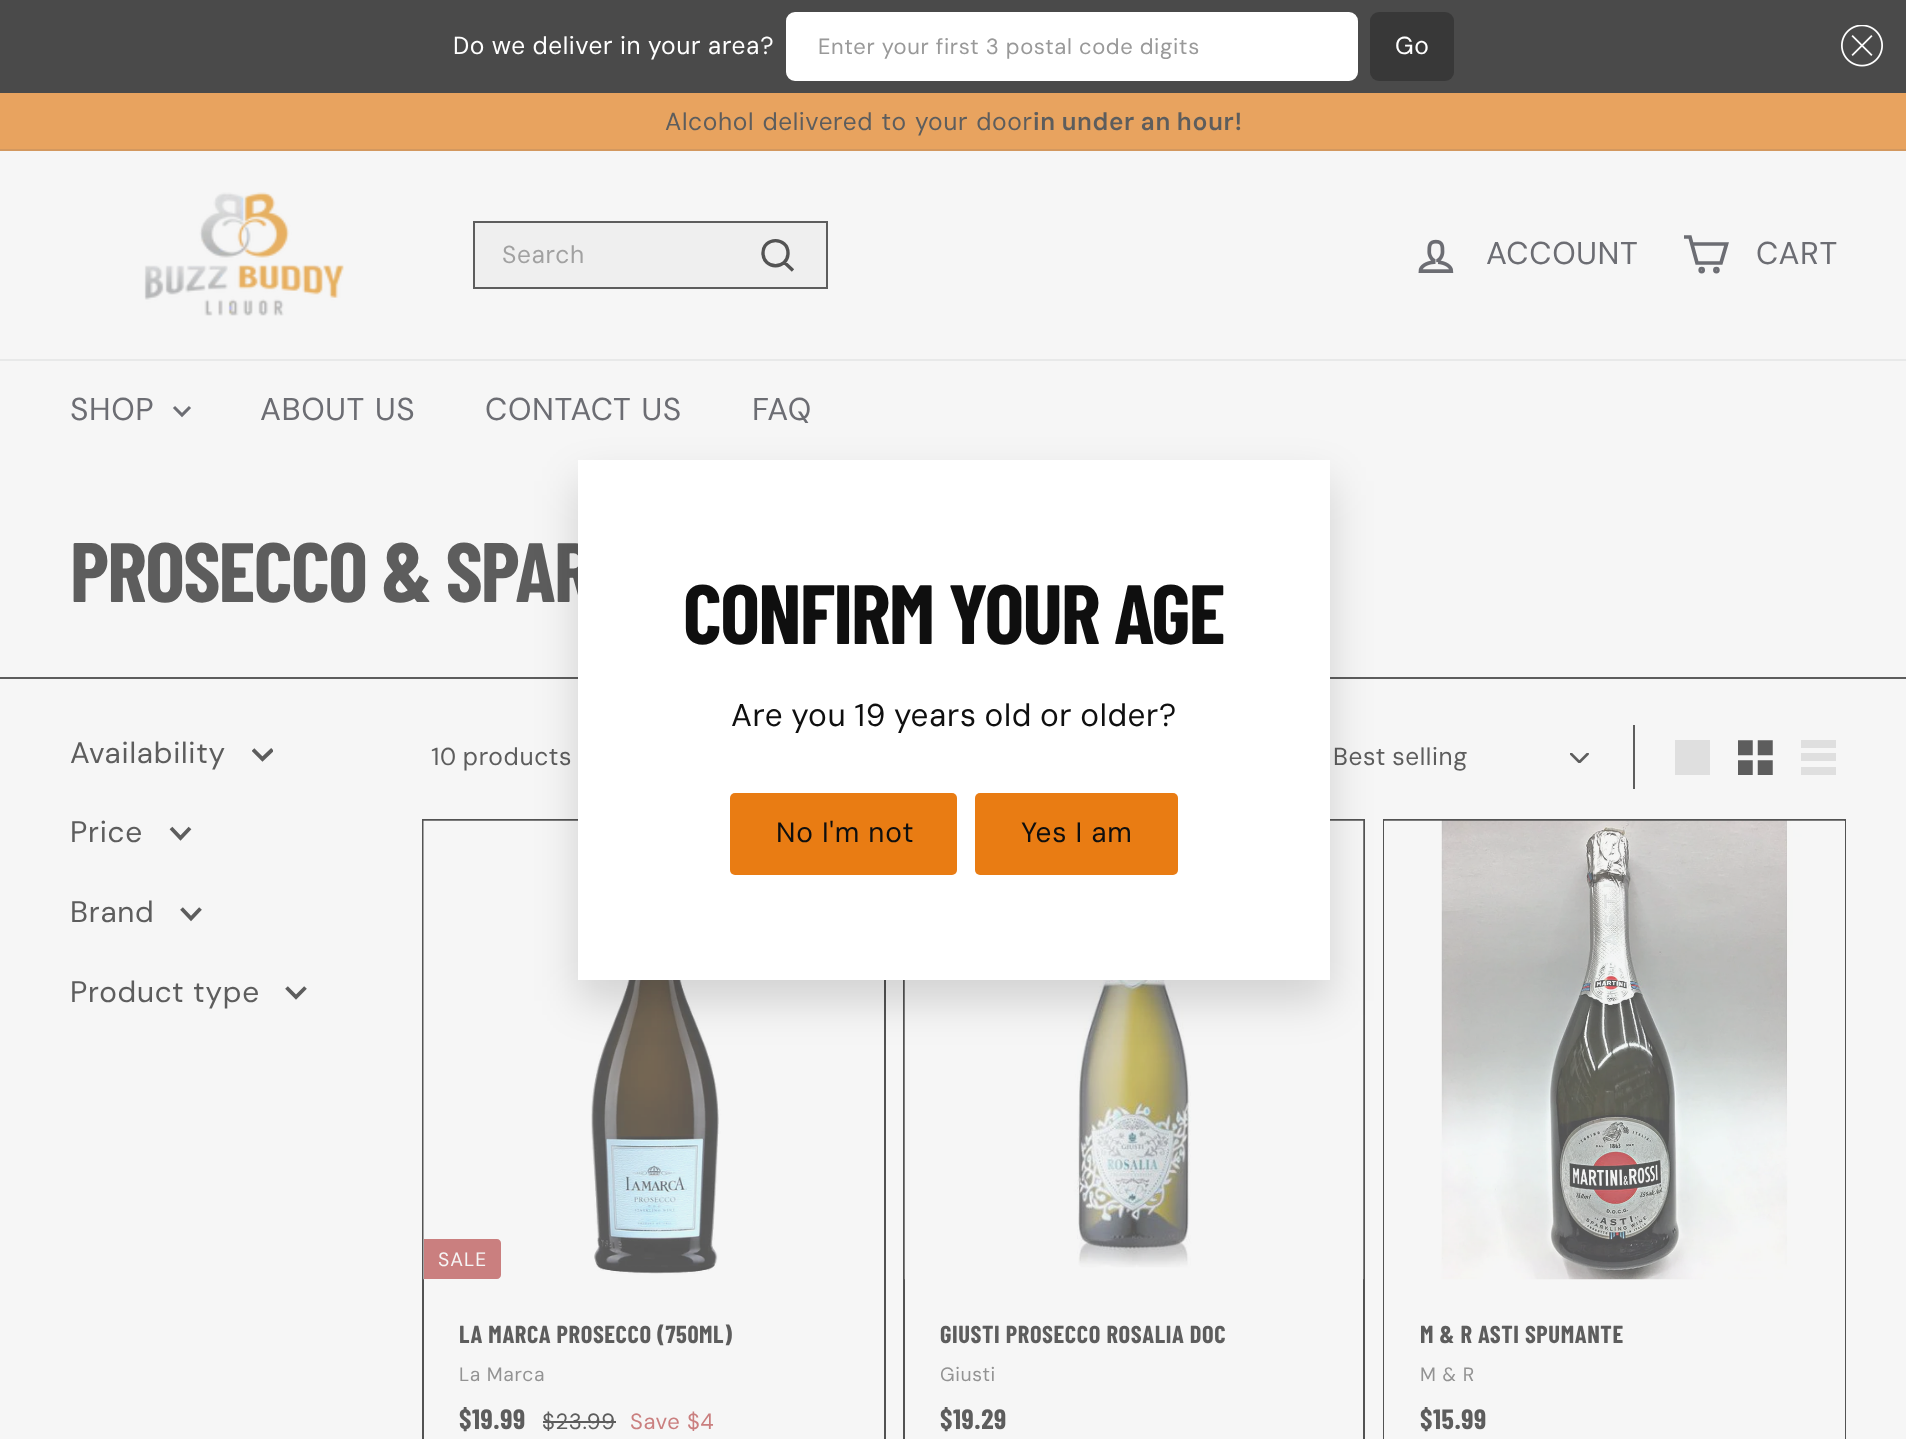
<svg xmlns="http://www.w3.org/2000/svg" width="1906" height="1439" viewBox="0 0 1906 1439">
  <defs>
    <clipPath id="clip1"><rect x="252" y="744" width="21" height="21"/></clipPath>
  </defs>
  <rect width="100%" height="100%" fill="rgb(246,246,246)"/>
  <rect x="0" y="0" width="1906" height="93" fill="rgb(74,74,74)"/>
  <text x="453" y="54" word-spacing="-0.5" font-family="DM Sans" font-size="24.5" letter-spacing="0.6" fill="rgb(255,255,255)">Do we deliver in your area?</text>
  <rect x="787" y="13" width="570" height="67" rx="8" fill="rgb(255,255,255)" stroke="rgb(255,255,255)" stroke-width="2"/>
  <text x="818" y="54" font-family="'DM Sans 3'" font-size="22" letter-spacing="0.6" fill="rgb(153,153,153)">Enter your first 3 postal code digits</text>
  <rect x="1370" y="12" width="84" height="69" rx="9" fill="rgb(56,56,56)"/>
  <text x="1395" y="54" font-family="DM Sans" font-size="24.5" letter-spacing="0.6" fill="rgb(255,255,255)">Go</text>
  <image x="1841" y="25" width="42" height="42" href="pic1.png"/>
  <rect x="0" y="93" width="1906" height="56" fill="rgb(232,163,95)"/>
  <text x="665" y="130" word-spacing="1" font-family="DM Sans" font-size="24.5" letter-spacing="0.6" fill="rgb(93,93,93)">Alcohol delivered to your door</text>
  <text x="1033" y="130" word-spacing="-1" font-family="DM Sans" font-size="24.5" font-weight="600" letter-spacing="0.6" fill="rgb(93,93,93)">in under an hour!</text>
  <rect x="0" y="149" width="1906" height="2" fill="rgb(211,152,95)"/>
  <image x="144" y="192" width="200" height="124" href="pic2.png"/>
  <rect x="474" y="222" width="353" height="66" fill="rgb(239,239,239)" stroke="rgb(93,93,93)" stroke-width="2"/>
  <text x="502" y="263" font-family="DM Sans" font-size="24.5" letter-spacing="0.6" fill="rgb(161,161,161)">Search</text>
  <path d="M788 253C788 270 763 270 763 253C763 236.5 788 236.5 788 253ZM793 270.5L784.5 262.5" fill="none" stroke="rgb(83,83,83)" stroke-width="3.4"/>
  <image x="1418" y="239" width="36" height="34" href="pic3.png"/>
  <text x="1486" y="264" font-family="DM Sans" font-size="31.5" letter-spacing="0.6" fill="rgb(108,109,115)">ACCOUNT</text>
  <path d="M1692 244H1726.5L1721 263H1697L1690 237H1684" fill="none" stroke="rgb(108,109,115)" stroke-width="3.7"/>
  <circle cx="1701.7" cy="270.1" r="1.5" fill="none" stroke="rgb(108,109,115)" stroke-width="3.7"/>
  <circle cx="1716.4" cy="270.1" r="1.5" fill="none" stroke="rgb(108,109,115)" stroke-width="3.7"/>
  <text x="1756" y="264" font-family="DM Sans" font-size="31.5" letter-spacing="0.6" fill="rgb(108,109,115)">CART</text>
  <rect x="0" y="359" width="1906" height="2" fill="rgb(232,233,233)"/>
  <text x="70" y="420" font-family="DM Sans" font-size="31.5" letter-spacing="0.6" fill="rgb(108,109,115)">SHOP</text>
  <path d="M174 407L182 415L190 407" fill="none" stroke="rgb(108,109,115)" stroke-width="3.1"/>
  <g font-family="DM Sans" font-size="31.5" letter-spacing="0.6" fill="rgb(108,109,115)">
    <text x="260" y="420" word-spacing="1">ABOUT US</text>
    <text x="485" y="420" word-spacing="1">CONTACT US</text>
    <text x="752" y="420">FAQ</text>
  </g>
  <text x="70" y="602" font-family="Barlow Condensed" font-size="84" font-weight="bold" letter-spacing="-1.7" fill="rgb(93,93,93)">PROSECCO &amp; SPAR</text>
  <rect x="0" y="677" width="1906" height="2" fill="rgb(93,93,93)"/>
  <text x="70" y="763" font-family="'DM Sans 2'" font-size="29.75" letter-spacing="0.75" fill="rgb(93,93,93)">Availability</text>
  <g clip-path="url(#clip1)">
    <path d="M253 749.5L262.5 759L272.5 749.5" fill="none" stroke="rgb(93,93,93)" stroke-width="3.8"/>
  </g>
  <text x="70" y="842" font-family="'DM Sans 2'" font-size="29.75" letter-spacing="0.75" fill="rgb(93,93,93)">Price</text>
  <path d="M171 828L180.5 838L190 828" fill="none" stroke="rgb(93,93,93)" stroke-width="3.8"/>
  <text x="70" y="922" font-family="'DM Sans 2'" font-size="29.75" letter-spacing="0.75" fill="rgb(93,93,93)">Brand</text>
  <path d="M181.5 908.5L191 918.5L200.5 908.5" fill="none" stroke="rgb(93,93,93)" stroke-width="3.8"/>
  <text x="70" y="1002" font-family="'DM Sans 2'" font-size="29.75" letter-spacing="0.75" fill="rgb(93,93,93)">Product type</text>
  <path d="M286.5 987.5L296 997L305.5 987.5" fill="none" stroke="rgb(93,93,93)" stroke-width="3.8"/>
  <text x="431" y="765" word-spacing="-1" font-family="DM Sans" font-size="24.5" letter-spacing="0.6" fill="rgb(93,93,93)">10 products</text>
  <rect x="1633" y="725" width="2" height="64" fill="rgb(93,93,93)"/>
  <image x="1570" y="753" width="19" height="10" href="pic4.png"/>
  <text x="1333" y="765" word-spacing="-1" font-family="DM Sans" font-size="24.5" letter-spacing="0.6" fill="rgb(93,93,93)">Best selling</text>
  <rect x="1675" y="740" width="35" height="35" fill="rgb(223,223,223)"/>
  <image x="1738" y="740" width="35" height="35" href="pic5.png"/>
  <path d="M1801 740H1836V748H1801ZM1801 753H1836V761H1801ZM1801 767H1836V775H1801Z" fill="rgb(223,223,223)"/>
  <rect x="423" y="820" width="462" height="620" fill="none" stroke="rgb(83,83,83)" stroke-width="2"/>
  <image x="423" y="820" width="461" height="460" href="pic6.png"/>
  <path d="M424 1239H497C499 1239 501 1241 501 1243V1275C501 1277 499 1279 497 1279H424Z" fill="rgb(202,127,127)"/>
  <text x="438" y="1266" font-family="DM Sans" font-size="19.25" letter-spacing="1" fill="rgb(246,246,246)">SALE</text>
  <text x="459" y="1343" font-family="Barlow Condensed" font-size="24.5" font-weight="bold" letter-spacing="0.6" fill="rgb(93,93,93)">LA MARCA PROSECCO (750ML)</text>
  <text x="459" y="1381" font-family="DM Sans" font-size="19.25" letter-spacing="0.6" fill="rgb(147,147,147)">La Marca</text>
  <text x="459" y="1429" font-family="Barlow Condensed" font-size="28" font-weight="bold" letter-spacing="0.6" fill="rgb(93,93,93)">$19.99</text>
  <text x="542" y="1429" font-family="'DM Sans 3'" font-size="22" letter-spacing="0.6" fill="rgb(93,93,93)">$23.99</text>
  <rect x="543" y="1421" width="73" height="2" fill="rgb(93,93,93)"/>
  <text x="630" y="1429" font-family="'DM Sans 3'" font-size="22" letter-spacing="0.6" fill="rgb(202,127,127)">Save $4</text>
  <rect x="904" y="820" width="460" height="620" fill="none" stroke="rgb(83,83,83)" stroke-width="2"/>
  <image x="904" y="820" width="460" height="460" href="pic7.png"/>
  <text x="940" y="1343" font-family="Barlow Condensed" font-size="24.5" font-weight="bold" letter-spacing="0.6" fill="rgb(93,93,93)">GIUSTI PROSECCO ROSALIA DOC</text>
  <text x="940" y="1381" font-family="DM Sans" font-size="19.25" letter-spacing="0.6" fill="rgb(147,147,147)">Giusti</text>
  <text x="940" y="1429" font-family="Barlow Condensed" font-size="28" font-weight="bold" letter-spacing="0.6" fill="rgb(93,93,93)">$19.29</text>
  <rect x="1384" y="820" width="461" height="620" fill="none" stroke="rgb(83,83,83)" stroke-width="2"/>
  <rect x="1384" y="821" width="461" height="618" fill="rgb(246,246,246)"/>
  <image x="1384" y="820" width="461" height="460" href="pic8.png"/>
  <text x="1420" y="1343" font-family="Barlow Condensed" font-size="24.5" font-weight="bold" letter-spacing="0.6" fill="rgb(93,93,93)">M &amp; R ASTI SPUMANTE</text>
  <text x="1420" y="1381" font-family="DM Sans" font-size="19.25" letter-spacing="0.6" fill="rgb(147,147,147)">M &amp; R</text>
  <text x="1420" y="1429" font-family="Barlow Condensed" font-size="28" font-weight="bold" letter-spacing="0.6" fill="rgb(93,93,93)">$15.99</text>
  <rect x="578" y="481" width="752" height="520" fill="rgba(0,0,0,0.15)" filter="blur(22px)"/>
  <rect x="578" y="460" width="752" height="520" fill="rgb(255,255,255)"/>
  <text x="683" y="644" font-family="Barlow Condensed" font-size="84" font-weight="bold" letter-spacing="-1.7" fill="rgb(15,15,15)">CONFIRM YOUR AGE</text>
  <text x="731" y="726" word-spacing="-1" font-family="DM Sans" font-size="31.5" letter-spacing="0.6" fill="rgb(15,15,15)">Are you 19 years old or older?</text>
  <rect x="730" y="793" width="227" height="82" rx="5" fill="rgb(233,124,19)"/>
  <text x="776" y="842" font-family="DM Sans" font-size="28" letter-spacing="0.75" fill="rgb(15,15,15)">No I'm not</text>
  <rect x="975" y="793" width="203" height="82" rx="5" fill="rgb(233,124,19)"/>
  <text x="1021" y="842" font-family="DM Sans" font-size="28" letter-spacing="0.75" fill="rgb(15,15,15)">Yes I am</text>
</svg>
